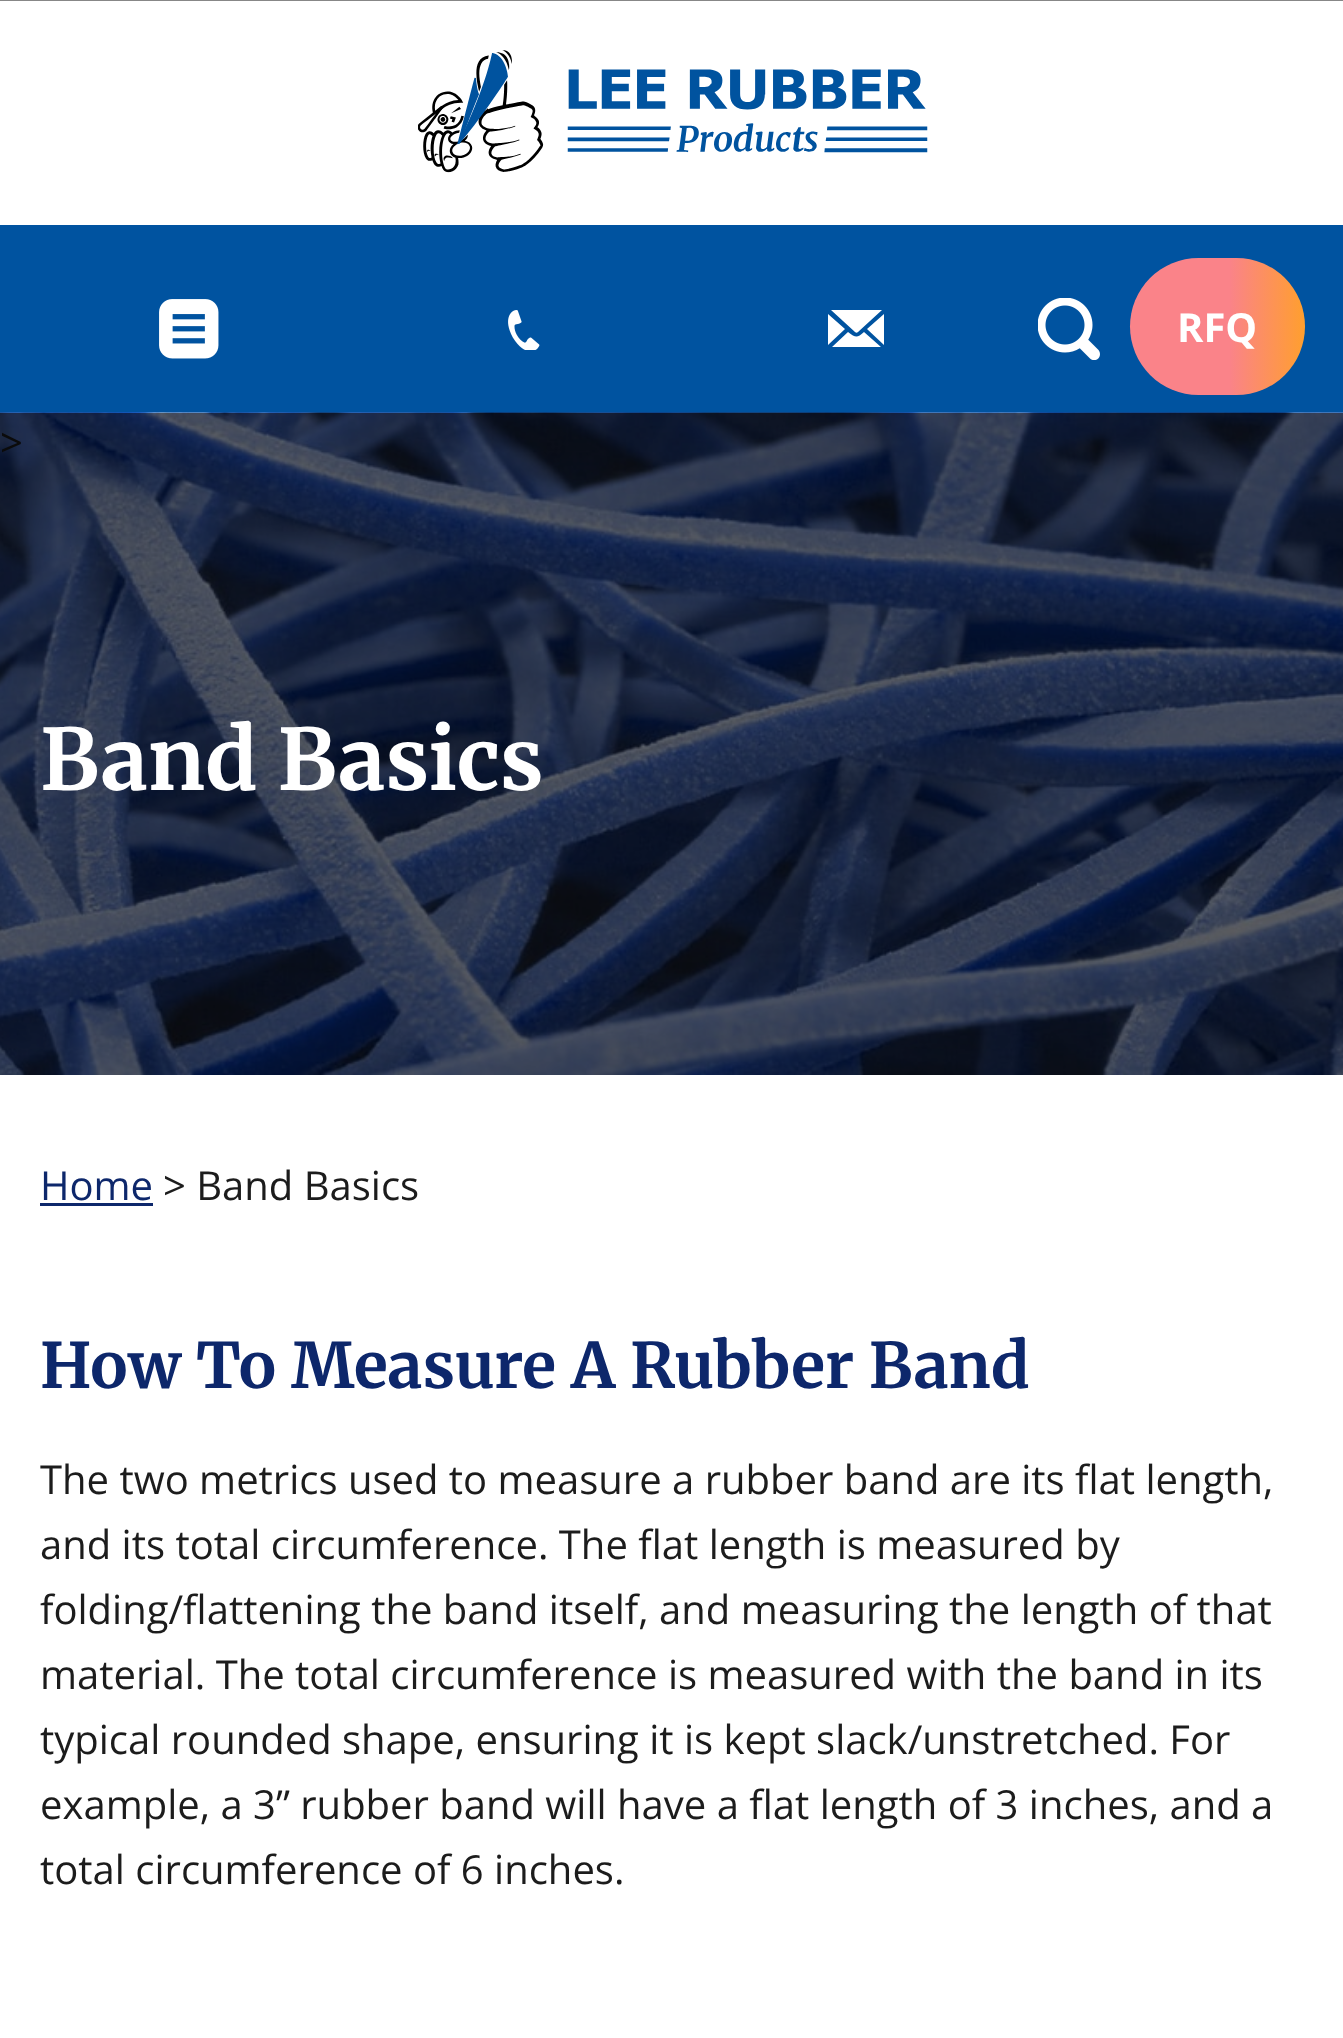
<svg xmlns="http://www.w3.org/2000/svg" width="1343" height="2038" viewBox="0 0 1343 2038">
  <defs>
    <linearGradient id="g1" gradientUnits="userSpaceOnUse" x1="1130" y1="326" x2="1305" y2="326"><stop offset="0" stop-color="rgb(250,131,137)"/><stop offset="0.57" stop-color="rgb(250,131,137)"/><stop offset="1" stop-color="rgb(255,159,46)"/></linearGradient>
  </defs>
  <rect width="100%" height="100%" fill="rgb(255,255,255)"/>
  <rect x="0" y="0" width="1343" height="1" fill="rgb(135,135,135)"/>
  <image x="418" y="50" width="510" height="123" href="pic1.png"/>
  <rect x="0" y="225" width="1343" height="188" fill="rgb(0,83,160)"/>
  <image x="159" y="299" width="60" height="60" href="pic2.png"/>
  <image x="508" y="310" width="32" height="40" href="pic3.png"/>
  <path d="M832 310H831L855 332C856 333 857 333 858 332L882 310ZM828 314V345L845 329ZM884 314L867 329L884 345ZM864 332C857 338 856 338 848 332L832 347H881Z" fill="rgb(255,255,255)"/>
  <image x="1038" y="298" width="62" height="62" href="pic4.png"/>
  <rect x="1130" y="258" width="175" height="137" rx="68.5" fill="url(#g1)"/>
  <text x="1177" y="342" font-family="Open Sans" font-size="40" font-weight="bold" fill="rgb(255,255,255)">RFQ</text>
  <image x="0" y="412" width="1343" height="663" href="pic5.png"/>
  <text x="0" y="457" font-family="Open Sans" font-size="40" fill="rgb(11,11,11)">&gt;</text>
  <text x="40" y="790" font-family="Merriweather" font-size="84.5" font-weight="bold" fill="rgb(255,255,255)">Band Basics</text>
  <text x="40" y="1200" font-family="Open Sans" font-size="40" fill="rgb(13,39,107)">Home</text>
  <rect x="40" y="1203" width="113" height="3" fill="rgb(13,39,107)"/>
  <text x="163" y="1200" font-family="Open Sans" font-size="40" fill="rgb(28,28,28)">&gt; Band Basics</text>
  <text x="40" y="1388" font-family="Merriweather" font-size="62.5" font-weight="bold" fill="rgb(13,39,107)">How To Measure A Rubber Band</text>
  <g font-family="Open Sans" font-size="40" fill="rgb(28,28,28)">
    <text>
      <tspan x="40" y="1494">The two metrics used to measure a rubber band are its flat length,</tspan>
      <tspan x="40" y="1559">and its total circumference. The flat length is measured by</tspan>
      <tspan x="40" y="1624">folding/flattening the band itself, and measuring the length of that</tspan>
      <tspan x="40" y="1689">material. The total circumference is measured with the band in its</tspan>
      <tspan x="40" y="1754">typical rounded shape, ensuring it is kept slack/unstretched. For</tspan>
      <tspan x="40" y="1819">example, a 3” rubber band will have a flat length of 3 inches, and a</tspan>
      <tspan x="40" y="1884">total circumference of 6 inches.</tspan>
    </text>
  </g>
</svg>
